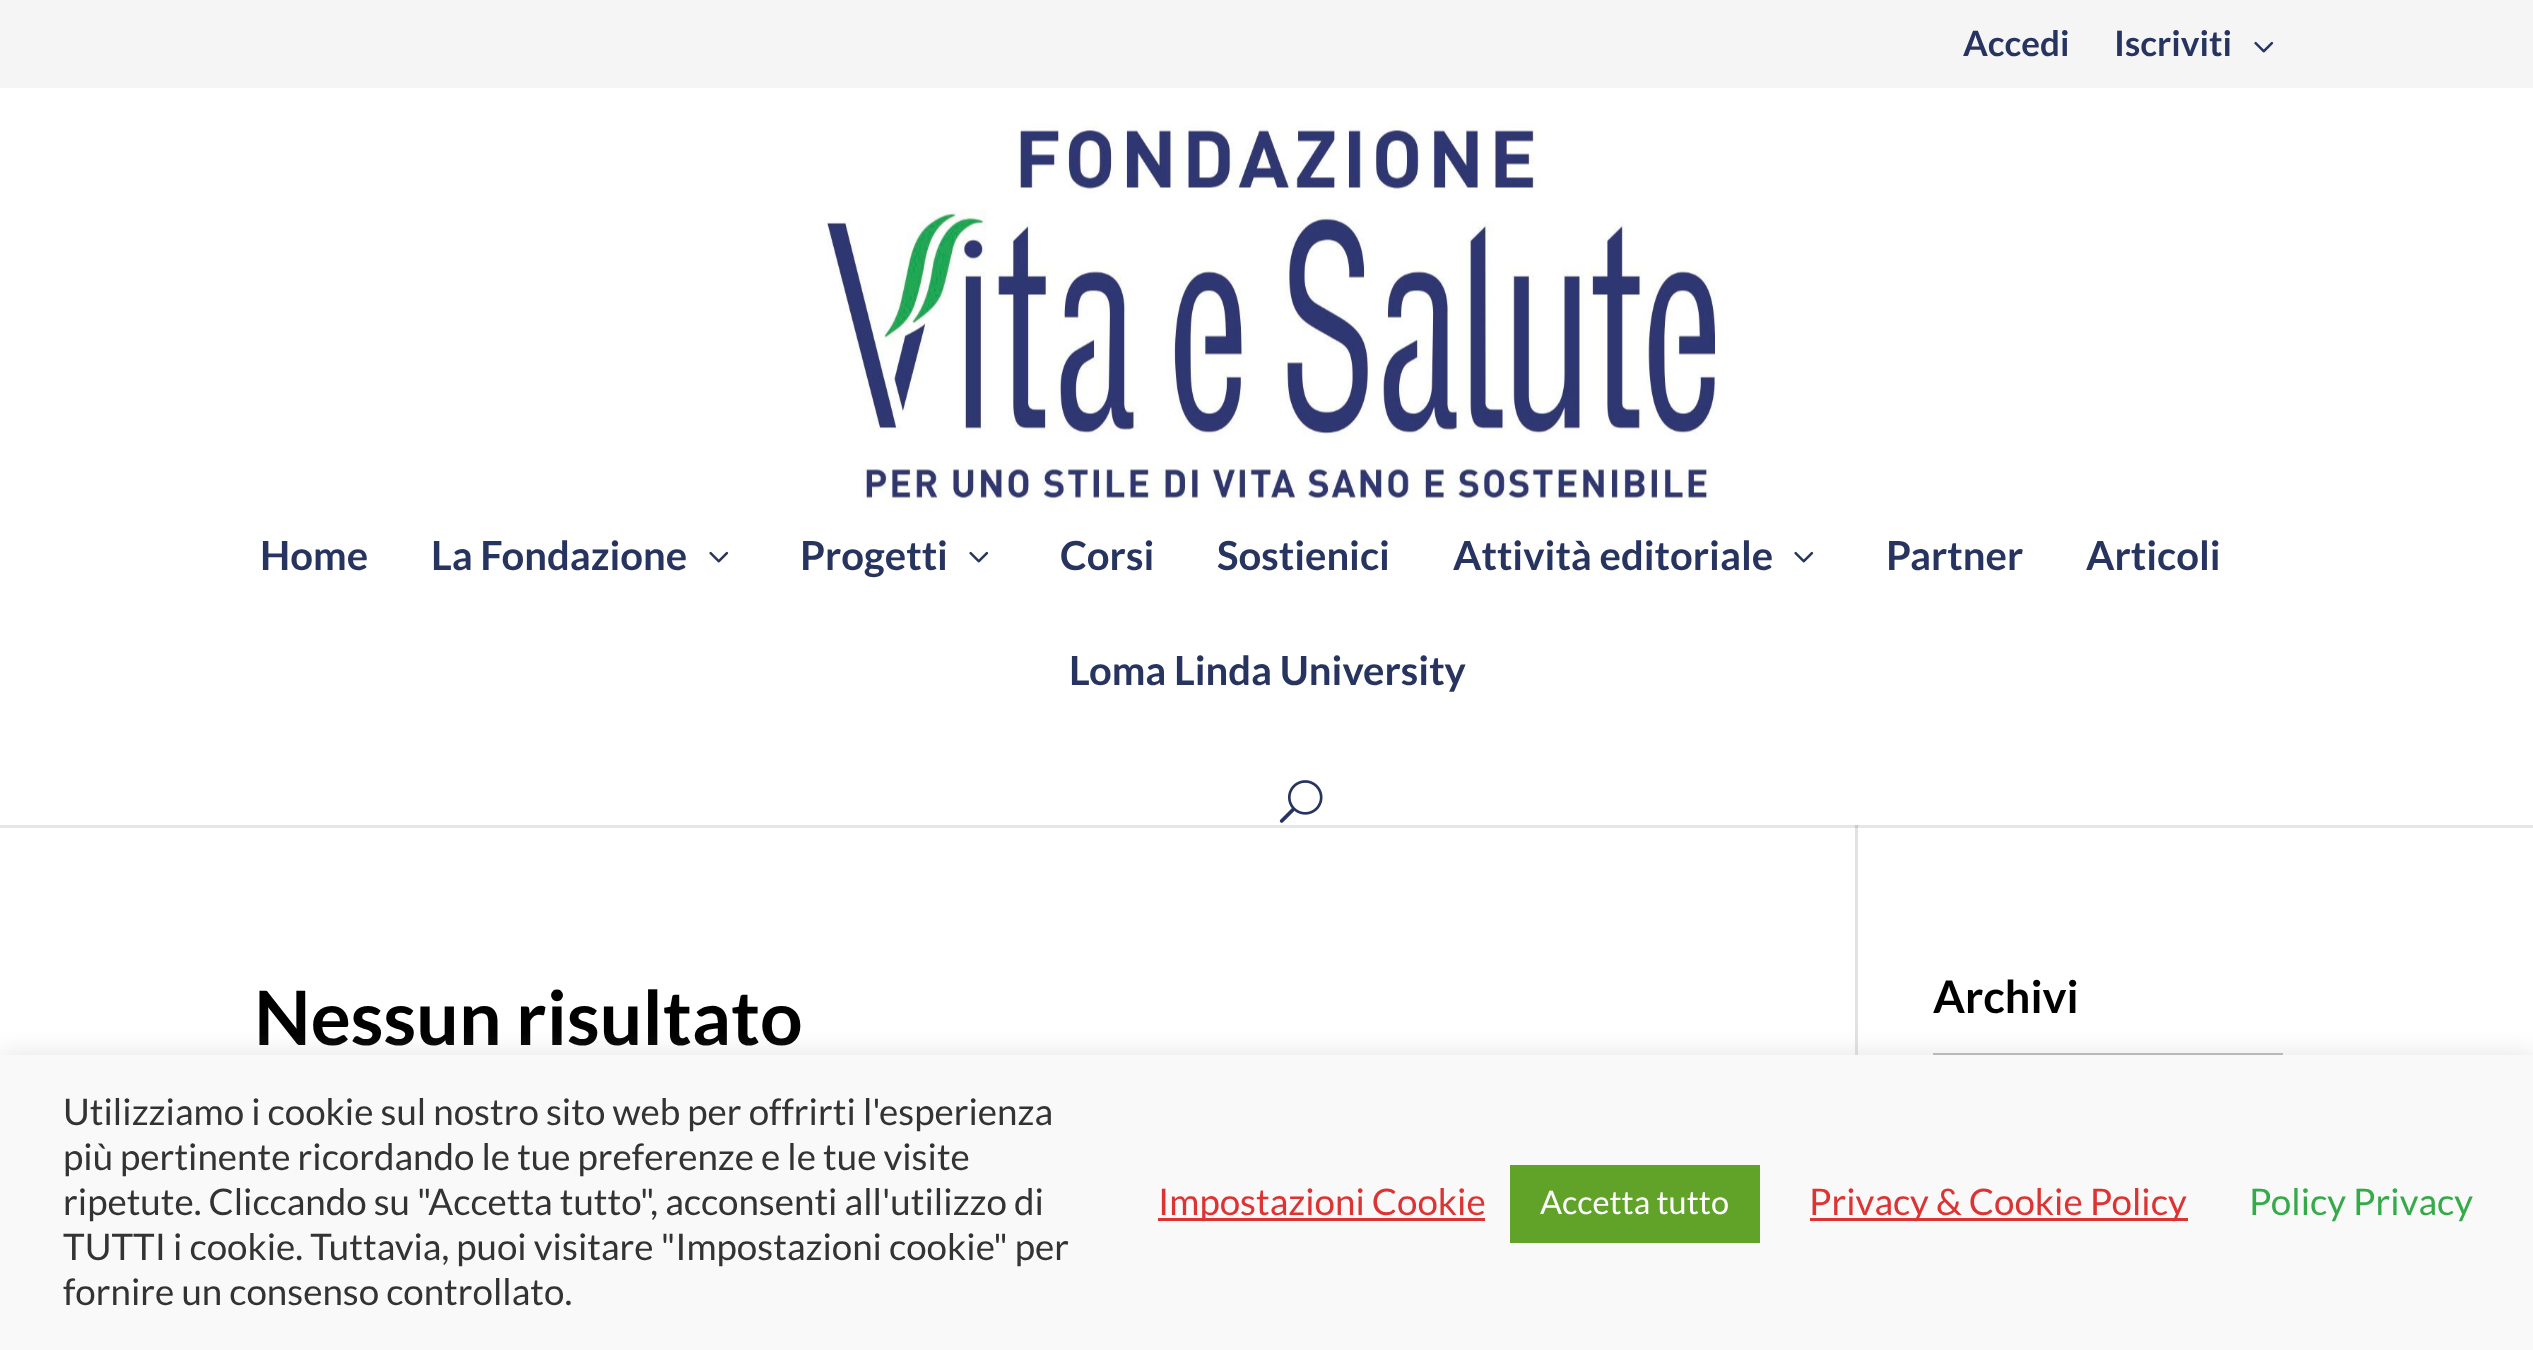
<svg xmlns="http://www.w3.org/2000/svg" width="2533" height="1350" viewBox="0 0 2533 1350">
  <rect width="100%" height="100%" fill="rgb(255,255,255)"/>
  <rect x="0" y="825" width="2533" height="3" fill="rgb(230,230,230)"/>
  <rect x="0" y="0" width="2533" height="88" fill="rgb(245,245,245)"/>
  <g font-family="Lato" font-size="35" font-weight="bold" fill="rgb(40,52,96)">
    <text x="1963" y="56">Accedi</text>
    <text x="2114" y="56">Iscriviti</text>
  </g>
  <image x="2254" y="41" width="20" height="12" href="pic1.png"/>
  <image x="827" y="122" width="888" height="381" href="pic2.png"/>
  <g font-family="Lato" font-size="40" font-weight="bold" fill="rgb(40,52,96)">
    <text x="260" y="570">Home</text>
    <text x="431" y="570">La Fondazione</text>
  </g>
  <image x="709" y="551" width="20" height="12" href="pic3.png"/>
  <text x="800" y="570" font-family="Lato" font-size="40" font-weight="bold" fill="rgb(40,52,96)">Progetti</text>
  <image x="969" y="551" width="20" height="12" href="pic3.png"/>
  <g font-family="Lato" font-size="40" font-weight="bold" fill="rgb(40,52,96)">
    <text x="1060" y="570">Corsi</text>
    <text x="1217" y="570">Sostienici</text>
    <text x="1453" y="570">Attività editoriale</text>
  </g>
  <image x="1794" y="551" width="20" height="12" href="pic3.png"/>
  <g font-family="Lato" font-size="40" font-weight="bold" fill="rgb(40,52,96)">
    <text x="1886" y="570">Partner</text>
    <text x="2086" y="570">Articoli</text>
    <text x="1069" y="685">Loma Linda University</text>
  </g>
  <image x="1279" y="780" width="44" height="43" href="pic4.png"/>
  <rect x="1855" y="825" width="3" height="230" fill="rgb(226,226,226)"/>
  <rect x="1855" y="825" width="3" height="3" fill="rgb(203,203,203)"/>
  <text x="254" y="1045" font-family="Lato" font-size="75" font-weight="bold" fill="rgb(0,0,0)">Nessun risultato</text>
  <text x="1933" y="1013" font-family="Lato" font-size="45" font-weight="bold" fill="rgb(0,0,0)">Archivi</text>
  <rect x="1934.5" y="1054.5" width="347" height="67" fill="none" stroke="rgb(187,187,187)" stroke-width="3"/>
  <rect x="0" y="1053" width="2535" height="295" fill="rgba(172,171,171,0.3)" filter="blur(12.5px)"/>
  <rect x="0" y="1055" width="2533" height="295" fill="rgb(249,249,249)"/>
  <g font-family="Lato" font-size="36.7" fill="rgb(51,51,51)">
    <text>
      <tspan x="63" y="1125">Utilizziamo i cookie sul nostro sito web per offrirti l'esperienza</tspan>
      <tspan x="63" y="1170">più pertinente ricordando le tue preferenze e le tue visite</tspan>
      <tspan x="63" y="1215">ripetute. Cliccando su "Accetta tutto", acconsenti all'utilizzo di</tspan>
      <tspan x="63" y="1260">TUTTI i cookie. Tuttavia, puoi visitare "Impostazioni cookie" per</tspan>
      <tspan x="63" y="1305">fornire un consenso controllato.</tspan>
    </text>
  </g>
  <rect x="1158" y="1218" width="327" height="3" fill="rgb(221,51,51)"/>
  <text x="1158" y="1215" font-family="Lato" font-size="36.7" fill="rgb(221,51,51)">Impostazioni Cookie</text>
  <rect x="1510" y="1165" width="250" height="78" fill="rgb(97,162,41)"/>
  <text x="1540" y="1214" font-family="Lato" font-size="32.5" fill="rgb(255,255,255)">Accetta tutto</text>
  <rect x="1810" y="1218" width="378" height="3" fill="rgb(221,51,51)"/>
  <text x="1809" y="1215" font-family="Lato" font-size="36.7" fill="rgb(221,51,51)">Privacy &amp; Cookie Policy</text>
  <text x="2249" y="1215" font-family="Lato" font-size="36.7" fill="rgb(53,170,73)">Policy Privacy</text>
</svg>
